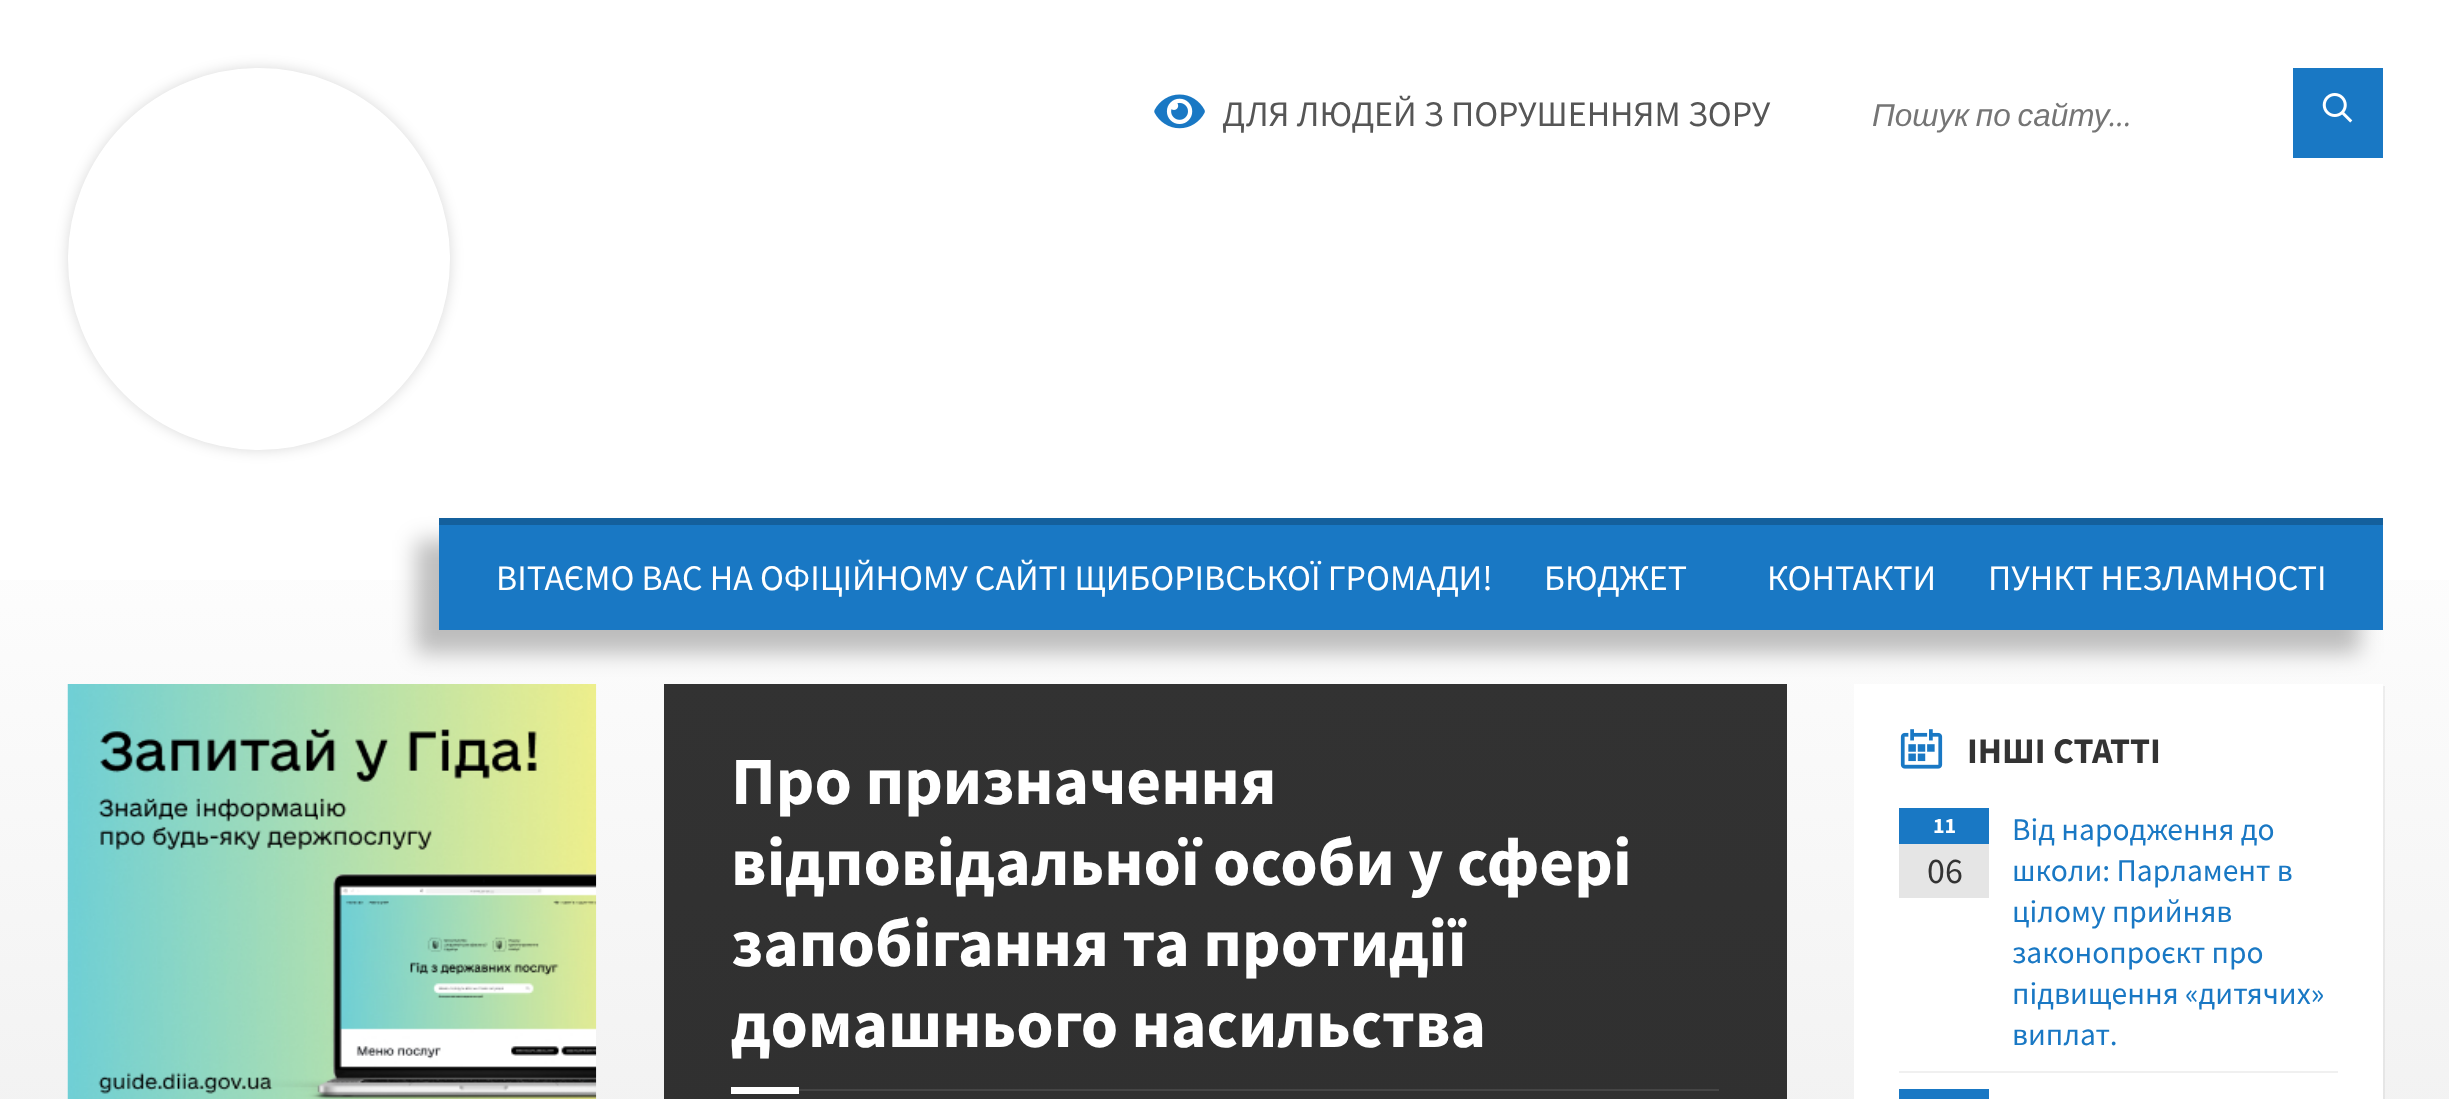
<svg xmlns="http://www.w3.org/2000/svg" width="2449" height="1099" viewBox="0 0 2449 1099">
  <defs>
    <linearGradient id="g1" gradientUnits="userSpaceOnUse" x1="1225" y1="450" x2="1225" y2="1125"><stop offset="0" stop-color="rgb(255,255,255)"/><stop offset="1" stop-color="rgb(242,242,242)"/></linearGradient>
    <linearGradient id="g2" gradientUnits="userSpaceOnUse" x1="1225" y1="450" x2="1225" y2="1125"><stop offset="0" stop-color="rgb(51,51,51)"/><stop offset="1" stop-color="rgb(48,48,48)"/></linearGradient>
  </defs>
  <rect width="100%" height="100%" fill="rgb(255,255,255)"/>
  <rect x="68" y="68" width="382" height="382" rx="191" fill="rgba(0,0,0,0.15)" filter="blur(7px)"/>
  <circle cx="259" cy="259" r="188.5" fill="rgb(255,255,255)" stroke="rgb(255,255,255)" stroke-width="5"/>
  <image x="1154" y="94" width="51" height="35" href="pic1.png"/>
  <text x="1222" y="126" font-family="Source Sans Pro" font-size="36" fill="rgb(86,86,86)">ДЛЯ ЛЮДЕЙ З ПОРУШЕННЯМ ЗОРУ</text>
  <text x="1872" y="126" word-spacing="-2" font-family="Liberation Sans" font-size="31.5" font-style="italic" fill="rgb(117,117,117)">Пошук по сайту</text>
  <text x="2109" y="126" font-family="Source Sans Pro" font-size="31.5" font-style="italic" fill="rgb(117,117,117)">...</text>
  <rect x="2293" y="68" width="90" height="90" fill="rgb(25,120,196)"/>
  <image x="2322" y="93" width="31" height="30" href="pic2.png"/>
  <rect x="0" y="580" width="2449" height="519" fill="url(#g1)"/>
  <rect x="664" y="684" width="1123" height="415" fill="url(#g2)"/>
  <image x="67" y="684" width="530" height="415" href="pic3.png"/>
  <path d="M1856 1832V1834H2385V686H2383V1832Z" fill="rgba(0,0,0,0.05)"/>
  <rect x="1854" y="684" width="529" height="415" fill="rgb(255,255,255)"/>
  <rect x="416" y="540" width="1944" height="113" fill="rgba(0,0,0,0.25)" filter="blur(11px)"/>
  <rect x="439" y="525" width="1944" height="105" fill="rgb(25,120,196)"/>
  <rect x="439" y="518" width="1944" height="7" fill="rgb(20,96,157)"/>
  <g font-family="Source Sans Pro" font-size="36" fill="rgb(255,255,255)">
    <text x="496" y="590">ВІТАЄМО ВАС НА ОФІЦІЙНОМУ САЙТІ ЩИБОРІВСЬКОЇ ГРОМАДИ!</text>
    <text x="1544" y="590">БЮДЖЕТ</text>
    <text x="1767" y="590">КОНТАКТИ</text>
    <text x="1988" y="590">ПУНКТ НЕЗЛАМНОСТІ</text>
  </g>
  <rect x="799" y="1089" width="920" height="2" fill="rgb(69,69,69)"/>
  <g font-family="Source Sans Pro" font-size="67.5" font-weight="bold" fill="rgb(255,255,255)">
    <text>
      <tspan x="731" y="804">Про призначення</tspan>
      <tspan x="731" y="885">відповідальної особи у сфері</tspan>
      <tspan x="731" y="966">запобігання та протидії</tspan>
      <tspan x="731" y="1047">домашнього насильства</tspan>
    </text>
  </g>
  <rect x="731" y="1087" width="68" height="7" fill="rgb(255,255,255)"/>
  <image x="1900" y="729" width="43" height="40" href="pic4.png"/>
  <text x="1967" y="763" font-family="Source Sans Pro" font-size="36" font-weight="bold" fill="rgb(51,51,51)">ІНШІ СТАТТІ</text>
  <rect x="1899" y="808" width="90" height="36" fill="rgb(25,120,196)"/>
  <text x="1933" y="833" font-family="Source Sans Pro" font-size="22" font-weight="bold" fill="rgb(255,255,255)">11</text>
  <rect x="1899" y="844" width="90" height="54" fill="rgb(229,229,229)"/>
  <text x="1927" y="883" font-family="Source Sans Pro" font-size="36" fill="rgb(51,51,51)">06</text>
  <g font-family="Source Sans Pro" font-size="31.5" fill="rgb(25,120,196)">
    <text>
      <tspan x="2012" y="840">Від народження до</tspan>
      <tspan x="2012" y="881">школи: Парламент в</tspan>
      <tspan x="2012" y="922">цілому прийняв</tspan>
      <tspan x="2012" y="963">законопроєкт про</tspan>
      <tspan x="2012" y="1004">підвищення «дитячих»</tspan>
      <tspan x="2012" y="1045">виплат.</tspan>
    </text>
  </g>
  <rect x="1899" y="1071" width="439" height="2" fill="rgb(240,240,240)"/>
  <rect x="1899" y="1089" width="90" height="10" fill="rgb(25,120,196)"/>
</svg>
